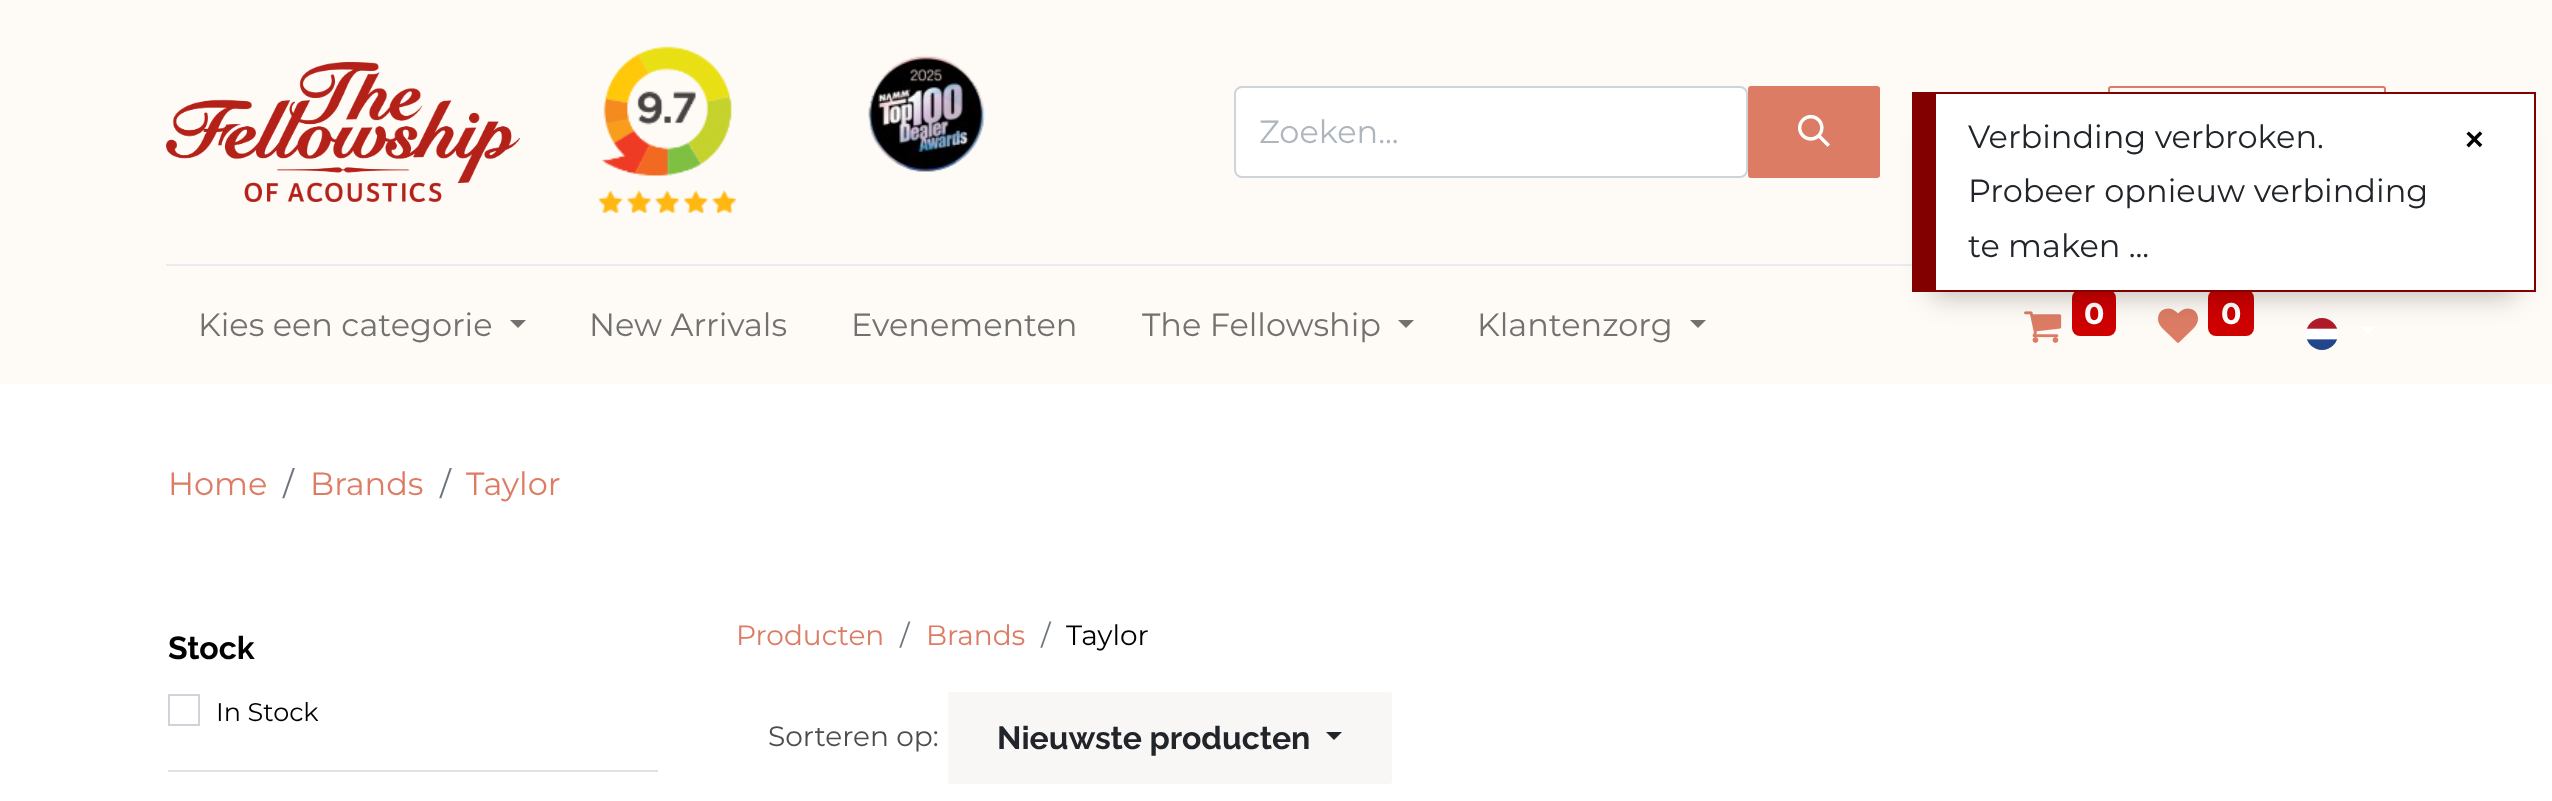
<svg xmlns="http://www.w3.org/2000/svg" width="2552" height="801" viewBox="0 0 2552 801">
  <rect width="100%" height="100%" fill="rgb(255,255,255)"/>
  <rect x="0" y="0" width="2552" height="384" fill="rgb(254,251,246)"/>
  <image x="166" y="62" width="354" height="140" href="pic1.png"/>
  <image x="597" y="46" width="139" height="168" href="pic2.png"/>
  <image x="868" y="55" width="117" height="117" href="pic3.png"/>
  <rect x="1235" y="87" width="512" height="90" rx="7" fill="rgb(255,255,255)" stroke="rgb(206,212,218)" stroke-width="2"/>
  <text x="1259" y="143" font-family="Montserrat" font-size="32" fill="rgb(173,181,189)">Zoeken...</text>
  <rect x="1749" y="87" width="130" height="90" rx="2" fill="rgb(220,124,100)" stroke="rgb(220,124,100)" stroke-width="2"/>
  <image x="1798" y="114" width="32" height="33" href="pic4.png"/>
  <rect x="2109" y="87" width="276" height="90" rx="2" fill="none" stroke="rgb(220,124,100)" stroke-width="2"/>
  <rect x="166" y="264" width="1746" height="2" fill="rgb(233,236,239)"/>
  <text x="198" y="336" font-family="Montserrat" font-size="32" fill="rgb(114,113,111)">Kies een categorie</text>
  <path d="M510 320H526L518 328Z" fill="rgb(114,113,111)"/>
  <g font-family="Montserrat" font-size="32" fill="rgb(114,113,111)">
    <text x="589" y="336">New Arrivals</text>
    <text x="851" y="336">Evenementen</text>
    <text x="1142" y="336">The Fellowship</text>
  </g>
  <path d="M1398 320H1414L1406 328Z" fill="rgb(114,113,111)"/>
  <text x="1477" y="336" font-family="Montserrat" font-size="32" fill="rgb(114,113,111)">Klantenzorg</text>
  <path d="M1690 320H1706L1698 328Z" fill="rgb(114,113,111)"/>
  <image x="2024" y="311" width="38" height="32" href="pic5.png"/>
  <rect x="2072" y="290" width="44" height="46" rx="8" fill="rgb(206,0,0)"/>
  <text x="2084" y="324" font-family="Montserrat" font-size="30" font-weight="bold" fill="rgb(255,255,255)">0</text>
  <image x="2158" y="308" width="40" height="35" href="pic6.png"/>
  <rect x="2208" y="290" width="46" height="46" rx="8" fill="rgb(206,0,0)"/>
  <text x="2221" y="324" font-family="Montserrat" font-size="30" font-weight="bold" fill="rgb(255,255,255)">0</text>
  <image x="2306" y="318" width="32" height="32" href="pic7.png"/>
  <path d="M2360 326H2376L2368 334Z" fill="rgb(255,255,255)"/>
  <text x="168" y="495" font-family="Montserrat" font-size="32" fill="rgb(220,124,100)">Home</text>
  <text x="283" y="495" font-family="Montserrat" font-size="32" fill="rgb(108,117,125)">/</text>
  <text x="310" y="495" font-family="Montserrat" font-size="32" fill="rgb(220,124,100)">Brands</text>
  <text x="440" y="495" font-family="Montserrat" font-size="32" fill="rgb(108,117,125)">/</text>
  <text x="466" y="495" font-family="Montserrat" font-size="32" fill="rgb(220,124,100)">Taylor</text>
  <rect x="168" y="770" width="490" height="2" fill="rgb(222,226,230)"/>
  <text x="168" y="659" font-family="Raleway" font-size="32" font-weight="bold" fill="rgb(0,0,0)">Stock</text>
  <rect x="169" y="695" width="30" height="30" fill="none" stroke="rgb(206,212,218)" stroke-width="2"/>
  <text x="216" y="721" font-family="Montserrat" font-size="25.5" fill="rgb(0,0,0)">In Stock</text>
  <text x="736" y="645" font-family="Montserrat" font-size="28" fill="rgb(220,124,100)">Producten</text>
  <text x="900" y="645" font-family="Montserrat" font-size="28" fill="rgb(108,117,125)">/</text>
  <text x="926" y="645" font-family="Montserrat" font-size="28" fill="rgb(220,124,100)">Brands</text>
  <text x="1041" y="645" font-family="Montserrat" font-size="28" fill="rgb(108,117,125)">/</text>
  <text x="1066" y="645" font-family="Montserrat" font-size="28" fill="rgb(0,0,0)">Taylor</text>
  <text x="768" y="746" font-family="Montserrat" font-size="28" fill="rgb(77,77,77)">Sorteren op:</text>
  <rect x="948" y="692" width="444" height="92" rx="3" fill="rgb(249,246,246)"/>
  <text x="997" y="749" font-family="Raleway" font-size="32" font-weight="bold" fill="rgb(33,37,41)">Nieuwste producten</text>
  <path d="M1326 732H1342L1334 740Z" fill="rgb(33,37,41)"/>
  <rect x="1932" y="136" width="584" height="160" fill="rgba(0,0,0,0.25)" filter="blur(14px)"/>
  <rect x="1936" y="94" width="598" height="196" fill="rgb(255,255,255)"/>
  <rect x="1936" y="92" width="600" height="2" fill="rgb(130,0,0)"/>
  <rect x="2534" y="92" width="2" height="200" fill="rgb(130,0,0)"/>
  <rect x="1936" y="290" width="600" height="2" fill="rgb(130,0,0)"/>
  <rect x="1912" y="92" width="24" height="200" fill="rgb(130,0,0)"/>
  <g font-family="Montserrat" font-size="32" fill="rgb(33,37,41)">
    <text>
      <tspan x="1968" y="148">Verbinding verbroken.</tspan>
      <tspan x="1968" y="202">Probeer opnieuw verbinding</tspan>
      <tspan x="1968" y="257">te maken ...</tspan>
    </text>
  </g>
  <text x="2465" y="150" font-family="Liberation Sans" font-size="32" font-weight="bold" fill="rgb(0,0,0)">×</text>
</svg>
